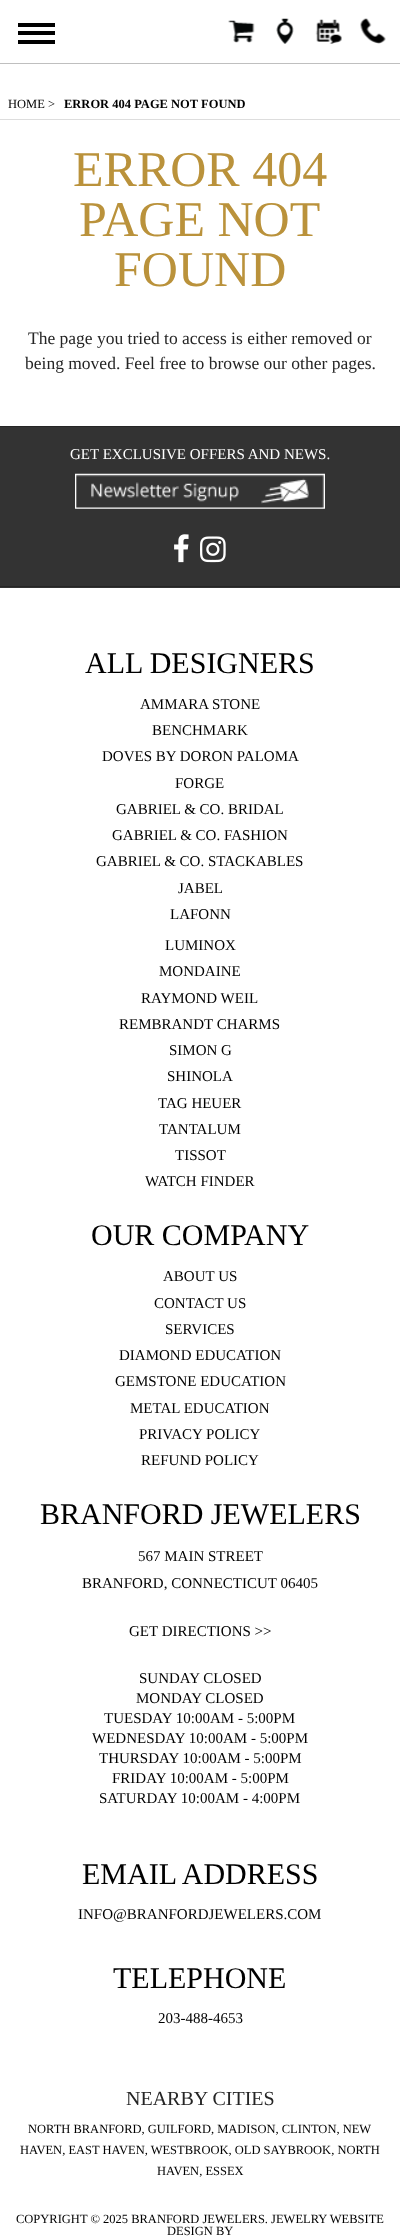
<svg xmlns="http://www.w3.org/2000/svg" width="400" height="2240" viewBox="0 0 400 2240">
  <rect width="100%" height="100%" fill="rgb(255,255,255)"/>
  <rect x="0" y="63" width="400" height="1" fill="rgb(191,191,191)"/>
  <rect x="18" y="31" width="37" height="4" fill="rgb(0,0,0)"/>
  <rect x="18" y="23" width="37" height="4" fill="rgb(0,0,0)"/>
  <rect x="18" y="40" width="37" height="4" fill="rgb(0,0,0)"/>
  <image x="228" y="20" width="27" height="23" href="pic1.png"/>
  <image x="276" y="18" width="18" height="26" href="pic2.png"/>
  <image x="315" y="19" width="27" height="25" href="pic3.png"/>
  <image x="360" y="18" width="26" height="26" href="pic4.png"/>
  <rect x="0" y="119" width="400" height="1" fill="rgb(221,221,221)"/>
  <text x="8" y="108" font-family="Liberation Serif" font-size="12.5" fill="rgb(0,0,0)">HOME &gt;</text>
  <text x="64" y="108" font-family="Liberation Serif" font-size="12.5" font-weight="bold" fill="rgb(0,0,0)">ERROR 404 PAGE NOT FOUND</text>
  <g font-family="Liberation Serif" font-size="50" fill="rgb(186,146,59)">
    <text x="73" y="186">ERROR 404</text>
    <text x="79" y="236">PAGE NOT</text>
    <text x="114" y="286">FOUND</text>
  </g>
  <g font-family="Liberation Serif" font-size="17.5" fill="rgb(37,37,37)">
    <text x="28" y="344">The page you tried to access is either removed or</text>
    <text x="25" y="369">being moved. Feel free to browse our other pages.</text>
  </g>
  <rect x="0" y="427" width="400" height="161" fill="rgb(51,51,51)"/>
  <rect x="0" y="426" width="400" height="1" fill="rgb(37,37,37)"/>
  <rect x="0" y="586" width="400" height="1" fill="rgb(37,37,37)"/>
  <text x="70" y="459" font-family="Liberation Serif" font-size="15" fill="rgb(255,255,255)">GET EXCLUSIVE OFFERS AND NEWS.</text>
  <image x="75" y="473" width="250" height="36" href="pic5.png"/>
  <image x="174" y="534" width="15" height="29" href="pic6.png"/>
  <image x="200" y="536" width="26" height="27" href="pic7.png"/>
  <text x="85" y="673" font-family="Liberation Serif" font-size="30" fill="rgb(0,0,0)">ALL DESIGNERS</text>
  <g font-family="Liberation Serif" font-size="15" fill="rgb(0,0,0)">
    <text x="140" y="709">AMMARA STONE</text>
    <text x="152" y="735">BENCHMARK</text>
    <text x="102" y="761">DOVES BY DORON PALOMA</text>
    <text x="175" y="788">FORGE</text>
    <text x="116" y="814">GABRIEL &amp; CO. BRIDAL</text>
    <text x="112" y="840">GABRIEL &amp; CO. FASHION</text>
    <text x="96" y="866">GABRIEL &amp; CO. STACKABLES</text>
    <text x="178" y="893">JABEL</text>
    <text x="170" y="919">LAFONN</text>
    <text x="165" y="950">LUMINOX</text>
    <text x="159" y="976">MONDAINE</text>
    <text x="141" y="1003">RAYMOND WEIL</text>
    <text x="119" y="1029">REMBRANDT CHARMS</text>
    <text x="169" y="1055">SIMON G</text>
    <text x="167" y="1081">SHINOLA</text>
    <text x="158" y="1108">TAG HEUER</text>
    <text x="159" y="1134">TANTALUM</text>
    <text x="175" y="1160">TISSOT</text>
    <text x="145" y="1186">WATCH FINDER</text>
  </g>
  <text x="91" y="1245" font-family="Liberation Serif" font-size="30" fill="rgb(0,0,0)">OUR COMPANY</text>
  <g font-family="Liberation Serif" font-size="15" fill="rgb(0,0,0)">
    <text x="163" y="1281">ABOUT US</text>
    <text x="154" y="1308">CONTACT US</text>
    <text x="165" y="1334">SERVICES</text>
    <text x="119" y="1360">DIAMOND EDUCATION</text>
    <text x="115" y="1386">GEMSTONE EDUCATION</text>
    <text x="130" y="1413">METAL EDUCATION</text>
    <text x="139" y="1439">PRIVACY POLICY</text>
    <text x="141" y="1465">REFUND POLICY</text>
  </g>
  <text x="40" y="1524" font-family="Liberation Serif" font-size="30" fill="rgb(0,0,0)">BRANFORD JEWELERS</text>
  <g font-family="Liberation Serif" font-size="15" fill="rgb(0,0,0)">
    <text x="138" y="1561">567 MAIN STREET</text>
    <text x="82" y="1588">BRANFORD, CONNECTICUT 06405</text>
    <text x="129" y="1636">GET DIRECTIONS &gt;&gt;</text>
    <text x="139" y="1683">SUNDAY CLOSED</text>
    <text x="136" y="1703">MONDAY CLOSED</text>
    <text x="104" y="1723">TUESDAY 10:00AM - 5:00PM</text>
    <text x="92" y="1743">WEDNESDAY 10:00AM - 5:00PM</text>
    <text x="99" y="1763">THURSDAY 10:00AM - 5:00PM</text>
    <text x="112" y="1783">FRIDAY 10:00AM - 5:00PM</text>
    <text x="99" y="1803">SATURDAY 10:00AM - 4:00PM</text>
  </g>
  <text x="82" y="1884" font-family="Liberation Serif" font-size="30" fill="rgb(0,0,0)">EMAIL ADDRESS</text>
  <text x="78" y="1919" font-family="Liberation Serif" font-size="15" fill="rgb(0,0,0)">INFO@BRANFORDJEWELERS.COM</text>
  <text x="113" y="1988" font-family="Liberation Serif" font-size="30" fill="rgb(0,0,0)">TELEPHONE</text>
  <text x="158" y="2023" font-family="Liberation Serif" font-size="15" fill="rgb(0,0,0)">203-488-4653</text>
  <text x="126" y="2105" font-family="Liberation Serif" font-size="20" fill="rgb(37,37,37)">NEARBY CITIES</text>
  <g font-family="Liberation Serif" font-size="12.5" fill="rgb(0,0,0)">
    <text x="28" y="2133">NORTH BRANFORD, GUILFORD, MADISON, CLINTON, NEW</text>
    <text x="20" y="2154">HAVEN, EAST HAVEN, WESTBROOK, OLD SAYBROOK, NORTH</text>
    <text x="157" y="2175">HAVEN, ESSEX</text>
    <text x="16" y="2223">COPYRIGHT © 2025 BRANFORD JEWELERS. JEWELRY WEBSITE</text>
    <text x="167" y="2235">DESIGN BY</text>
  </g>
</svg>
